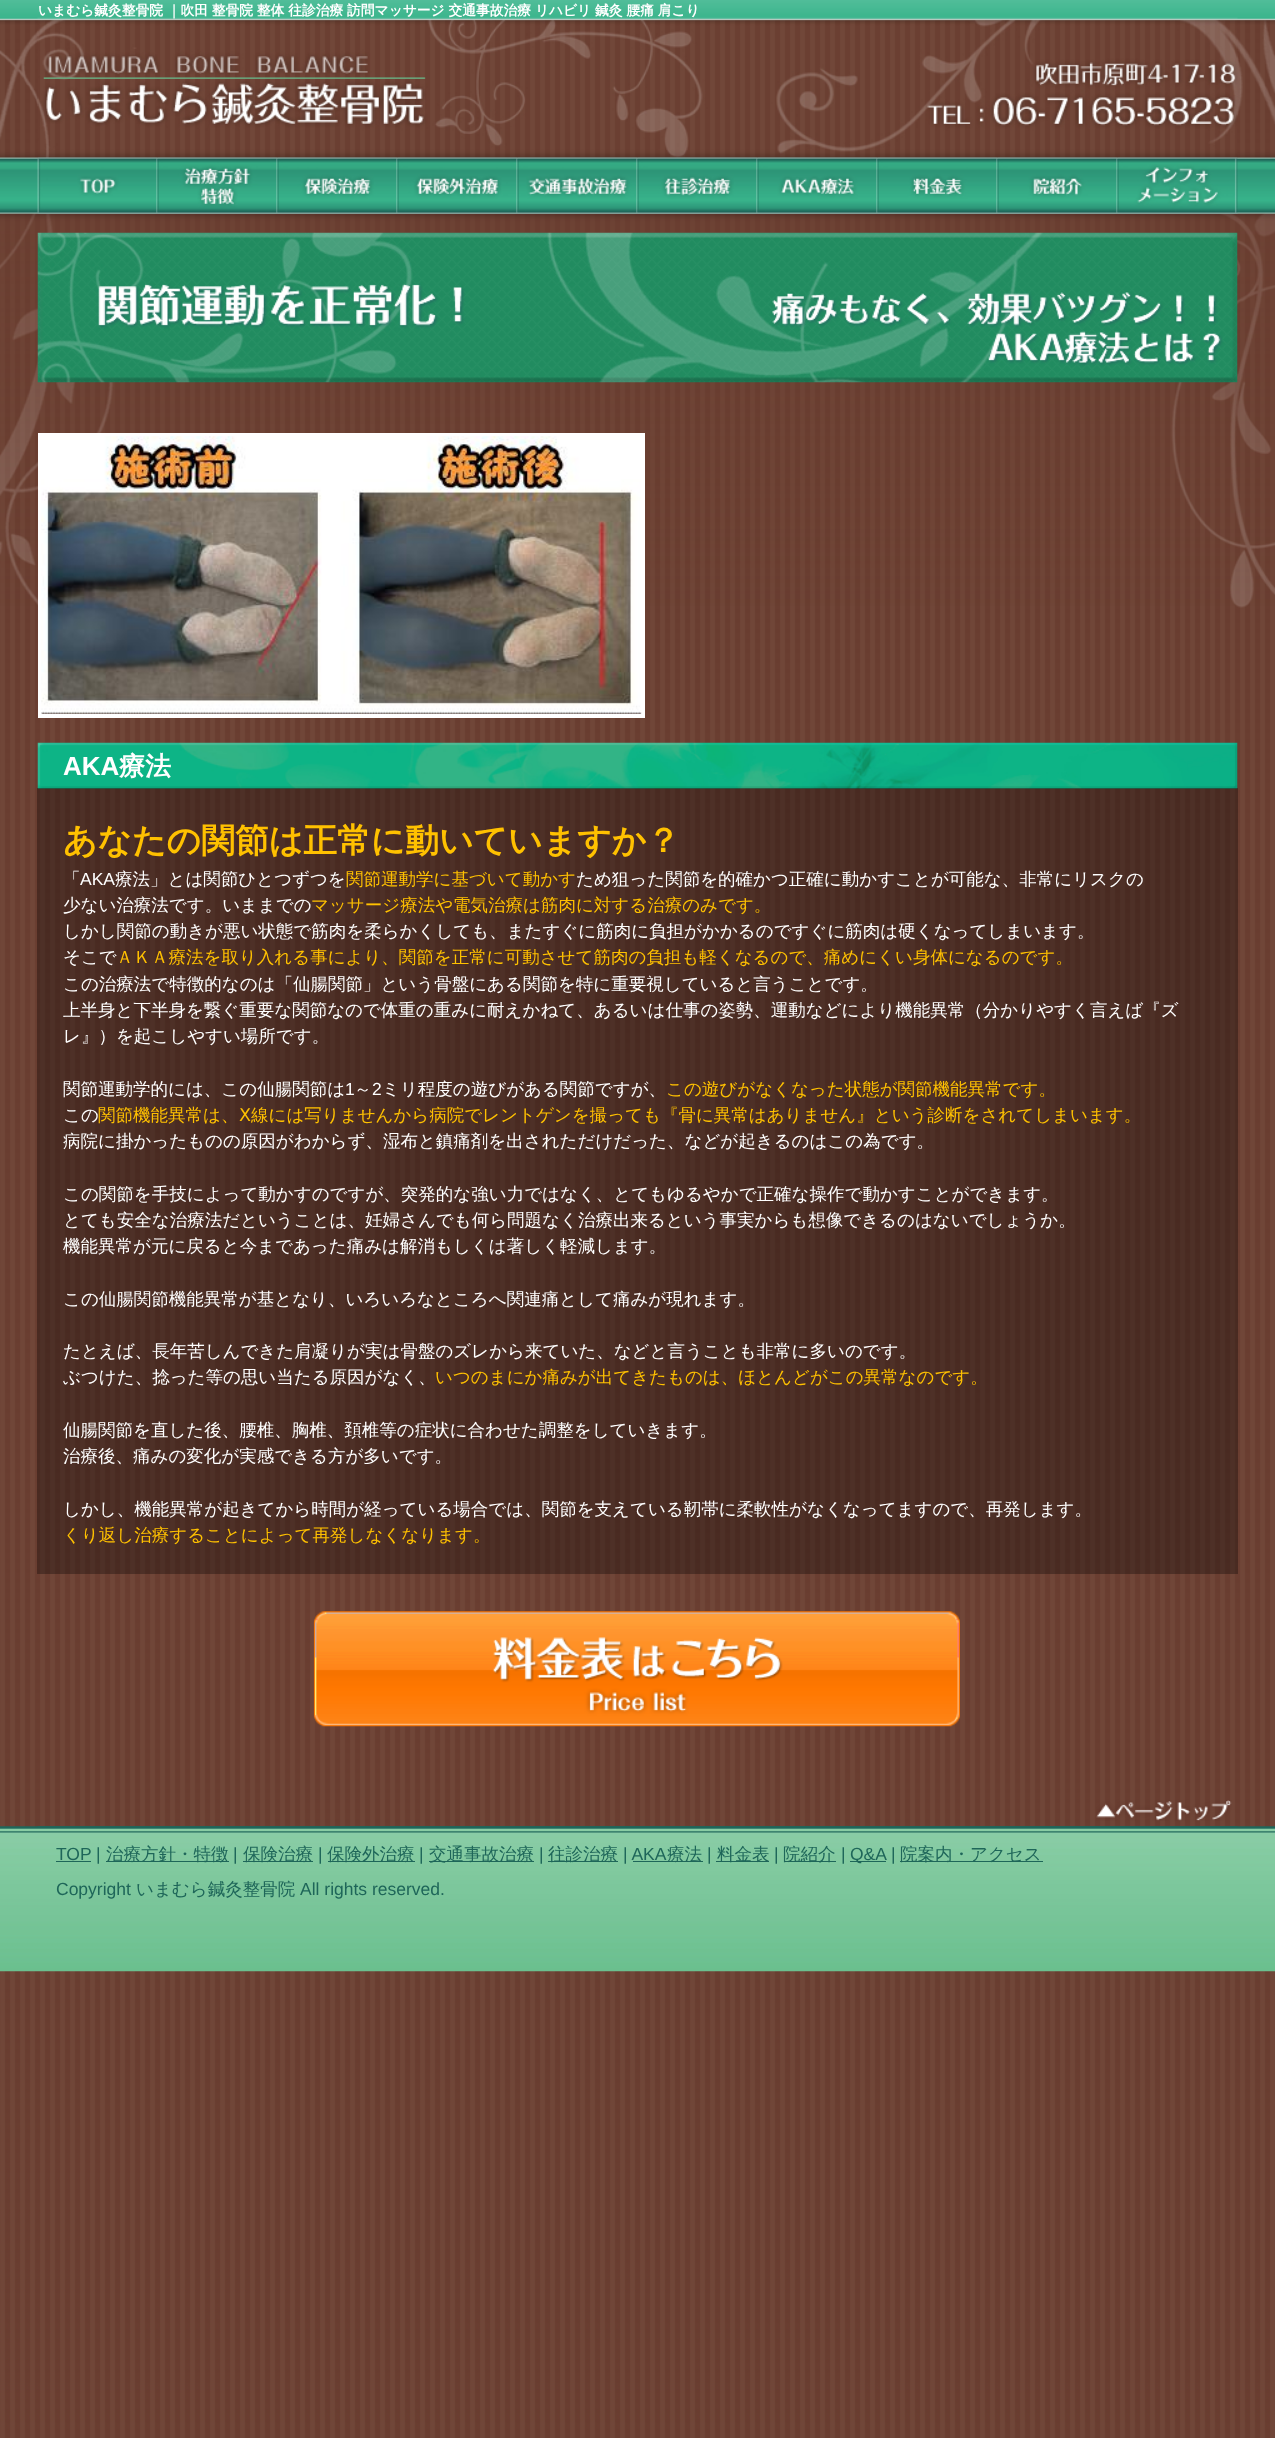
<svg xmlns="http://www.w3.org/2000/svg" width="1275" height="2438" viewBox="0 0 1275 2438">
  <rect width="100%" height="100%" fill="rgb(255,255,255)"/>
  <image x="0" y="19" width="1275" height="2419" href="pic1.png"/>
  <image x="0" y="19" width="1275" height="589" href="pic20.png"/>
  <image x="0" y="0" width="1275" height="606" href="pic2.png"/>
  <image x="37" y="17" width="1201" height="141" href="pic3.png"/>
  <text x="38" y="15" word-spacing="-0.25" font-family="WenQuanYi Zen Hei" font-size="13.75" font-weight="bold" fill="rgb(255,255,255)">いまむら鍼灸整骨院 ｜吹田 整骨院 整体 往診治療 訪問マッサージ 交通事故治療 リハビリ 鍼灸 腰痛 肩こり</text>
  <image x="37" y="157" width="121" height="57" href="pic4.png"/>
  <image x="157" y="157" width="121" height="57" href="pic5.png"/>
  <image x="277" y="157" width="121" height="57" href="pic6.png"/>
  <image x="397" y="157" width="121" height="57" href="pic7.png"/>
  <image x="517" y="157" width="121" height="57" href="pic8.png"/>
  <image x="637" y="157" width="121" height="57" href="pic9.png"/>
  <image x="757" y="157" width="121" height="57" href="pic10.png"/>
  <image x="877" y="157" width="121" height="57" href="pic11.png"/>
  <image x="997" y="157" width="121" height="57" href="pic12.png"/>
  <image x="1117" y="157" width="121" height="57" href="pic13.png"/>
  <image x="37" y="232" width="1201" height="151" href="pic14.png"/>
  <rect x="40" y="435" width="603" height="281" fill="none" stroke="rgb(255,255,255)" stroke-width="4"/>
  <image x="41" y="436" width="601" height="278" href="pic15.png"/>
  <image x="37" y="742" width="1201" height="47" href="pic16.png"/>
  <text x="63" y="775" font-family="Liberation Sans" font-size="26" font-weight="bold" fill="rgb(255,255,255)">AKA</text>
  <text x="119" y="775" font-family="WenQuanYi Zen Hei" font-size="26" font-weight="bold" fill="rgb(255,255,255)">療法</text>
  <rect x="37" y="788" width="1201" height="786" fill="rgba(0,0,0,0.3)"/>
  <text x="63" y="852" font-family="WenQuanYi Zen Hei" font-size="33.75" font-weight="bold" fill="rgb(255,193,0)">あなたの関節は正常に動いていますか？</text>
  <text x="63" y="885" font-family="WenQuanYi Zen Hei" font-size="17.5" font-weight="500" fill="rgb(255,255,255)">「</text>
  <text x="80" y="885" font-family="Liberation Sans" font-size="17.5" fill="rgb(255,255,255)">AKA</text>
  <text x="115" y="885" font-family="WenQuanYi Zen Hei" font-size="17.5" font-weight="500" fill="rgb(255,255,255)">療法」とは関節ひとつずつを</text>
  <text x="346" y="885" font-family="WenQuanYi Zen Hei" font-size="17.5" font-weight="500" fill="rgb(255,193,0)">関節運動学に基づいて動かす</text>
  <g font-family="WenQuanYi Zen Hei" font-size="17.5" font-weight="500" fill="rgb(255,255,255)">
    <text x="576" y="885">ため狙った関節を的確かつ正確に動かすことが可能な、非常にリスクの</text>
    <text x="63" y="911">少ない治療法です。いままでの</text>
  </g>
  <text x="311" y="911" font-family="WenQuanYi Zen Hei" font-size="17.5" font-weight="500" fill="rgb(255,193,0)">マッサージ療法や電気治療は筋肉に対する治療のみです。</text>
  <g font-family="WenQuanYi Zen Hei" font-size="17.5" font-weight="500" fill="rgb(255,255,255)">
    <text>
      <tspan x="63" y="937">しかし関節の動きが悪い状態で筋肉を柔らかくしても、またすぐに筋肉に負担がかかるのですぐに筋肉は硬くなってしまいます。</tspan>
      <tspan x="63" y="963">そこで</tspan>
    </text>
  </g>
  <text x="116" y="963" font-family="WenQuanYi Zen Hei" font-size="17.5" font-weight="500" fill="rgb(255,193,0)">ＡＫＡ療法を取り入れる事により、関節を正常に可動させて筋肉の負担も軽くなるので、痛めにくい身体になるのです。</text>
  <g font-family="WenQuanYi Zen Hei" font-size="17.5" font-weight="500" fill="rgb(255,255,255)">
    <text>
      <tspan x="63" y="990">この治療法で特徴的なのは「仙腸関節」という骨盤にある関節を特に重要視していると言うことです。</tspan>
      <tspan x="63" y="1016">上半身と下半身を繋ぐ重要な関節なので体重の重みに耐えかねて、あるいは仕事の姿勢、運動などにより機能異常（分かりやすく言えば『ズ</tspan>
      <tspan x="63" y="1042">レ』）を起こしやすい場所です。</tspan>
    </text>
    <text x="63" y="1095">関節運動学的には、この仙腸関節は</text>
  </g>
  <text x="345" y="1095" font-family="Liberation Sans" font-size="17.5" fill="rgb(255,255,255)">1</text>
  <text x="354" y="1095" font-family="WenQuanYi Zen Hei" font-size="17.5" font-weight="500" fill="rgb(255,255,255)">～</text>
  <text x="372" y="1095" font-family="Liberation Sans" font-size="17.5" fill="rgb(255,255,255)">2</text>
  <text x="382" y="1095" font-family="WenQuanYi Zen Hei" font-size="17.5" font-weight="500" fill="rgb(255,255,255)">ミリ程度の遊びがある関節ですが、</text>
  <text x="666" y="1095" font-family="WenQuanYi Zen Hei" font-size="17.5" font-weight="500" fill="rgb(255,193,0)">この遊びがなくなった状態が関節機能異常です。</text>
  <text x="63" y="1121" font-family="WenQuanYi Zen Hei" font-size="17.5" font-weight="500" fill="rgb(255,255,255)">この</text>
  <text x="98" y="1121" font-family="WenQuanYi Zen Hei" font-size="17.5" font-weight="500" fill="rgb(255,193,0)">関節機能異常は、</text>
  <text x="239" y="1121" font-family="DejaVu Sans" font-size="17.5" fill="rgb(255,193,0)">Ⅹ</text>
  <text x="251" y="1121" font-family="WenQuanYi Zen Hei" font-size="17.5" font-weight="500" fill="rgb(255,193,0)">線には写りませんから病院でレントゲンを撮っても『骨に異常はありません』という診断をされてしまいます。</text>
  <g font-family="WenQuanYi Zen Hei" font-size="17.5" font-weight="500" fill="rgb(255,255,255)">
    <text x="63" y="1147">病院に掛かったものの原因がわからず、湿布と鎮痛剤を出されただけだった、などが起きるのはこの為です。</text>
    <text>
      <tspan x="63" y="1200">この関節を手技によって動かすのですが、突発的な強い力ではなく、とてもゆるやかで正確な操作で動かすことができます。</tspan>
      <tspan x="63" y="1226">とても安全な治療法だということは、妊婦さんでも何ら問題なく治療出来るという事実からも想像できるのはないでしょうか。</tspan>
      <tspan x="63" y="1252">機能異常が元に戻ると今まであった痛みは解消もしくは著しく軽減します。</tspan>
    </text>
    <text x="63" y="1305">この仙腸関節機能異常が基となり、いろいろなところへ関連痛として痛みが現れます。</text>
    <text>
      <tspan x="63" y="1357">たとえば、長年苦しんできた肩凝りが実は骨盤のズレから来ていた、などと言うことも非常に多いのです。</tspan>
      <tspan x="63" y="1383">ぶつけた、捻った等の思い当たる原因がなく、</tspan>
    </text>
  </g>
  <text x="435" y="1383" font-family="WenQuanYi Zen Hei" font-size="17.5" font-weight="500" fill="rgb(255,193,0)">いつのまにか痛みが出てきたものは、ほとんどがこの異常なのです。</text>
  <g font-family="WenQuanYi Zen Hei" font-size="17.5" font-weight="500" fill="rgb(255,255,255)">
    <text>
      <tspan x="63" y="1436">仙腸関節を直した後、腰椎、胸椎、頚椎等の症状に合わせた調整をしていきます。</tspan>
      <tspan x="63" y="1462">治療後、痛みの変化が実感できる方が多いです。</tspan>
    </text>
    <text x="63" y="1515">しかし、機能異常が起きてから時間が経っている場合では、関節を支えている靭帯に柔軟性がなくなってますので、再発します。</text>
  </g>
  <text x="63" y="1541" font-family="WenQuanYi Zen Hei" font-size="17.5" font-weight="500" fill="rgb(255,193,0)">くり返し治療することによって再発しなくなります。</text>
  <image x="313" y="1611" width="647" height="116" href="pic17.png"/>
  <image x="0" y="1826" width="1275" height="146" href="pic21.png"/>
  <image x="37" y="1826" width="1201" height="1" href="pic18.png"/>
  <image x="1096" y="1800" width="136" height="21" href="pic19.png"/>
  <text x="56" y="1860" font-family="Liberation Sans" font-size="17.5" fill="rgb(30,102,89)">TOP</text>
  <rect x="56" y="1861" width="35" height="1" fill="rgb(30,102,89)"/>
  <text x="96" y="1860" font-family="Liberation Sans" font-size="17.5" fill="rgb(30,102,89)">|</text>
  <rect x="106" y="1861" width="123" height="1" fill="rgb(30,102,89)"/>
  <text x="106" y="1860" font-family="WenQuanYi Zen Hei" font-size="17.5" font-weight="500" fill="rgb(30,102,89)">治療方針・特徴</text>
  <text x="233" y="1860" font-family="Liberation Sans" font-size="17.5" fill="rgb(30,102,89)">|</text>
  <rect x="243" y="1861" width="70" height="1" fill="rgb(30,102,89)"/>
  <text x="243" y="1860" font-family="WenQuanYi Zen Hei" font-size="17.5" font-weight="500" fill="rgb(30,102,89)">保険治療</text>
  <text x="318" y="1860" font-family="Liberation Sans" font-size="17.5" fill="rgb(30,102,89)">|</text>
  <rect x="328" y="1861" width="87" height="1" fill="rgb(30,102,89)"/>
  <text x="327" y="1860" font-family="WenQuanYi Zen Hei" font-size="17.5" font-weight="500" fill="rgb(30,102,89)">保険外治療</text>
  <text x="419" y="1860" font-family="Liberation Sans" font-size="17.5" fill="rgb(30,102,89)">|</text>
  <rect x="429" y="1861" width="105" height="1" fill="rgb(30,102,89)"/>
  <text x="429" y="1860" font-family="WenQuanYi Zen Hei" font-size="17.5" font-weight="500" fill="rgb(30,102,89)">交通事故治療</text>
  <text x="539" y="1860" font-family="Liberation Sans" font-size="17.5" fill="rgb(30,102,89)">|</text>
  <rect x="548" y="1861" width="70" height="1" fill="rgb(30,102,89)"/>
  <text x="548" y="1860" font-family="WenQuanYi Zen Hei" font-size="17.5" font-weight="500" fill="rgb(30,102,89)">往診治療</text>
  <text x="623" y="1860" font-family="Liberation Sans" font-size="17.5" fill="rgb(30,102,89)">| AKA</text>
  <rect x="633" y="1861" width="70" height="1" fill="rgb(30,102,89)"/>
  <text x="667" y="1860" font-family="WenQuanYi Zen Hei" font-size="17.5" font-weight="500" fill="rgb(30,102,89)">療法</text>
  <text x="707" y="1860" font-family="Liberation Sans" font-size="17.5" fill="rgb(30,102,89)">|</text>
  <rect x="716" y="1861" width="53" height="1" fill="rgb(30,102,89)"/>
  <text x="717" y="1860" font-family="WenQuanYi Zen Hei" font-size="17.5" font-weight="500" fill="rgb(30,102,89)">料金表</text>
  <text x="774" y="1860" font-family="Liberation Sans" font-size="17.5" fill="rgb(30,102,89)">|</text>
  <rect x="784" y="1861" width="52" height="1" fill="rgb(30,102,89)"/>
  <text x="783" y="1860" font-family="WenQuanYi Zen Hei" font-size="17.5" font-weight="500" fill="rgb(30,102,89)">院紹介</text>
  <text x="841" y="1860" font-family="Liberation Sans" font-size="17.5" fill="rgb(30,102,89)">|</text>
  <rect x="850" y="1861" width="36" height="1" fill="rgb(30,102,89)"/>
  <g font-family="Liberation Sans" font-size="17.5" fill="rgb(30,102,89)">
    <text x="850" y="1860">Q&amp;A</text>
    <text x="891" y="1860">|</text>
  </g>
  <rect x="900" y="1861" width="143" height="1" fill="rgb(30,102,89)"/>
  <text x="900" y="1860" font-family="WenQuanYi Zen Hei" font-size="17.5" font-weight="500" fill="rgb(30,102,89)">院案内・アクセス</text>
  <text x="56" y="1895" font-family="Liberation Sans" font-size="17.5" fill="rgb(30,102,89)">Copyright</text>
  <text x="136" y="1895" font-family="WenQuanYi Zen Hei" font-size="17.5" font-weight="500" fill="rgb(30,102,89)">いまむら鍼灸整骨院</text>
  <text x="300" y="1895" font-family="Liberation Sans" font-size="17.5" fill="rgb(30,102,89)">All rights reserved.</text>
</svg>
